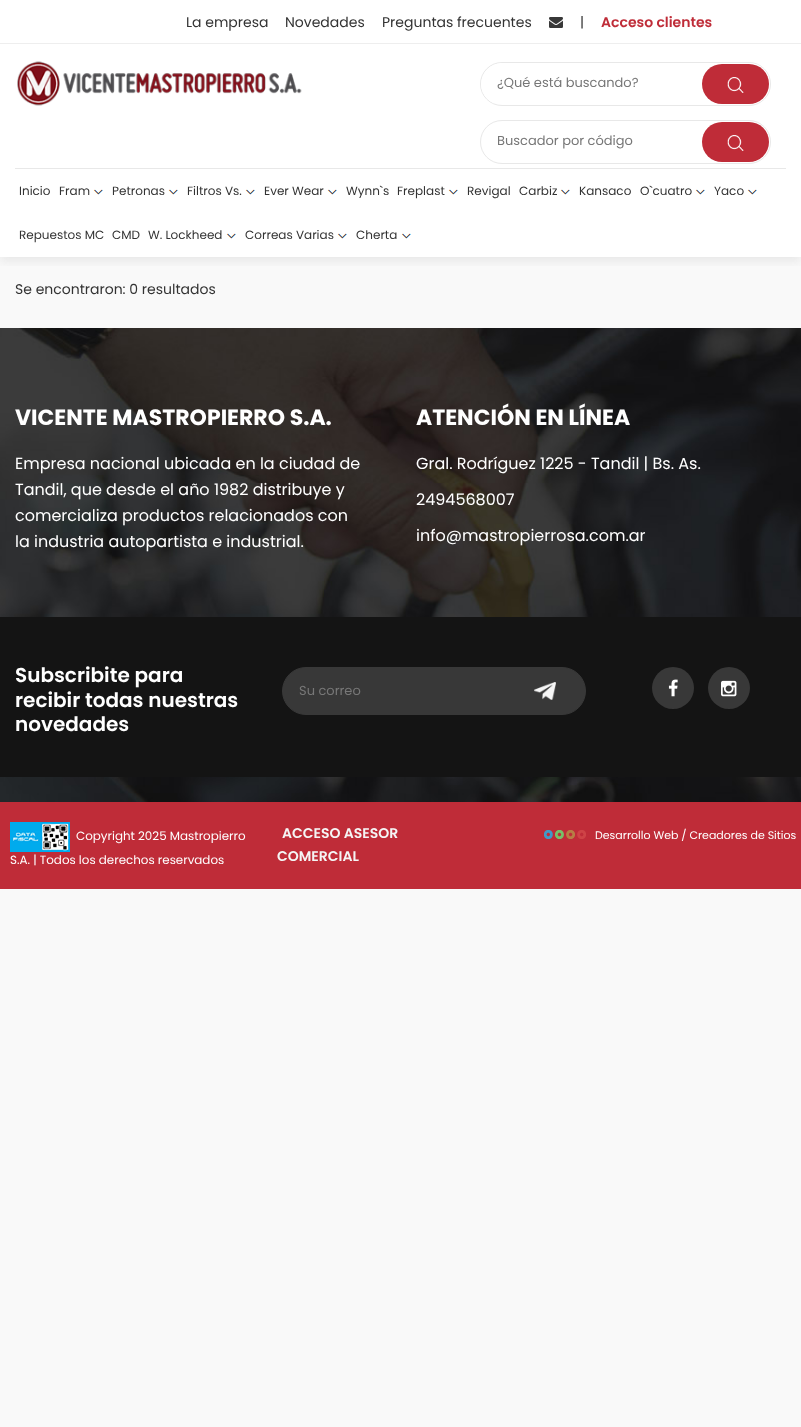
<svg xmlns="http://www.w3.org/2000/svg" width="801" height="1427" viewBox="0 0 801 1427">
  <defs>
    <clipPath id="clip1"><rect x="481" y="63" width="289" height="42" rx="21"/></clipPath>
    <clipPath id="clip2"><rect x="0" y="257" width="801" height="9"/></clipPath>
  </defs>
  <rect width="100%" height="100%" fill="rgb(249,249,249)"/>
  <rect x="0" y="0" width="801" height="257" fill="rgb(255,255,255)"/>
  <rect x="0" y="43" width="801" height="1" fill="rgb(238,238,238)"/>
  <g font-family="Poppins" font-size="14" fill="rgb(51,51,51)">
    <text x="186" y="27">La empresa</text>
    <text x="285" y="27">Novedades</text>
    <text x="382" y="27">Preguntas frecuentes</text>
  </g>
  <image x="549" y="17" width="14" height="11" href="pic1.png"/>
  <text x="580" y="27" font-family="Poppins" font-size="14" fill="rgb(51,51,51)">|</text>
  <text x="601" y="27" font-family="Poppins" font-size="14" font-weight="600" fill="rgb(191,44,56)">Acceso clientes</text>
  <image x="17" y="61" width="285" height="45" href="pic2.png"/>
  <rect x="480.5" y="62.5" width="290" height="43" rx="21.5" fill="none" stroke="rgb(232,232,232)"/>
  <g clip-path="url(#clip1)">
    <path d="M502 63H763C766.5 63 769 65.5 769 69V97C769 100.5 766.5 103 763 103H487C483.5 103 481 100.5 481 97V84C481 72.5 490.5 63 502 63Z" fill="rgb(255,255,255)"/>
  </g>
  <text x="497" y="87" font-family="Poppins" font-size="13" fill="rgb(119,119,119)">¿Qué está buscando?</text>
  <rect x="702" y="64" width="67" height="40" rx="20" fill="rgb(191,44,56)"/>
  <image x="727" y="77" width="17" height="16" href="pic3.png"/>
  <g clip-path="url(#clip2)">
    <rect x="0" y="173" width="801" height="89" fill="rgba(99,99,99,0.1)" filter="blur(5px)"/>
  </g>
  <rect x="480.5" y="120.5" width="290" height="43" rx="21.5" fill="none" stroke="rgb(232,232,232)"/>
  <text x="497" y="145" font-family="Poppins" font-size="13" fill="rgb(119,119,119)">Buscador por código</text>
  <rect x="702" y="122" width="67" height="40" rx="20" fill="rgb(191,44,56)"/>
  <image x="727" y="135" width="17" height="16" href="pic3.png"/>
  <rect x="15" y="168" width="771" height="1" fill="rgb(232,232,232)"/>
  <g font-family="Poppins" font-size="12" fill="rgb(51,51,51)">
    <text x="19" y="195">Inicio</text>
    <text x="59" y="195">Fram</text>
  </g>
  <image x="93" y="189" width="10" height="6" href="pic4.png"/>
  <text x="112" y="195" font-family="Poppins" font-size="12" fill="rgb(51,51,51)">Petronas</text>
  <image x="168" y="189" width="10" height="6" href="pic4.png"/>
  <text x="187" y="195" font-family="Poppins" font-size="12" fill="rgb(51,51,51)">Filtros Vs.</text>
  <image x="245" y="189" width="10" height="6" href="pic4.png"/>
  <text x="264" y="195" font-family="Poppins" font-size="12" fill="rgb(51,51,51)">Ever Wear</text>
  <image x="327" y="189" width="10" height="6" href="pic4.png"/>
  <g font-family="Poppins" font-size="12" fill="rgb(51,51,51)">
    <text x="346" y="195">Wynn`s</text>
    <text x="397" y="195">Freplast</text>
  </g>
  <image x="448" y="189" width="10" height="6" href="pic4.png"/>
  <g font-family="Poppins" font-size="12" fill="rgb(51,51,51)">
    <text x="467" y="195">Revigal</text>
    <text x="519" y="195">Carbiz</text>
  </g>
  <image x="560" y="189" width="10" height="6" href="pic4.png"/>
  <g font-family="Poppins" font-size="12" fill="rgb(51,51,51)">
    <text x="579" y="195">Kansaco</text>
    <text x="640" y="195">O`cuatro</text>
  </g>
  <image x="695" y="189" width="10" height="6" href="pic4.png"/>
  <text x="714" y="195" font-family="Poppins" font-size="12" fill="rgb(51,51,51)">Yaco</text>
  <image x="747" y="189" width="10" height="6" href="pic4.png"/>
  <g font-family="Poppins" font-size="12" fill="rgb(51,51,51)">
    <text x="19" y="239">Repuestos MC</text>
    <text x="112" y="239">CMD</text>
    <text x="148" y="239">W. Lockheed</text>
  </g>
  <image x="226" y="233" width="10" height="6" href="pic4.png"/>
  <text x="245" y="239" font-family="Poppins" font-size="12" fill="rgb(51,51,51)">Correas Varias</text>
  <image x="337" y="233" width="10" height="6" href="pic4.png"/>
  <text x="356" y="239" font-family="Poppins" font-size="12" fill="rgb(51,51,51)">Cherta</text>
  <image x="401" y="233" width="10" height="6" href="pic4.png"/>
  <text x="15" y="294" font-family="Poppins" font-size="14" fill="rgb(51,51,51)">Se encontraron: 0 resultados</text>
  <image x="0" y="328" width="801" height="474" href="pic5.png"/>
  <text x="15" y="425" font-family="Poppins" font-size="22" font-weight="bold" fill="rgb(255,255,255)">VICENTE MASTROPIERRO S.A.</text>
  <g font-family="Poppins" font-size="16" fill="rgb(255,255,255)">
    <text>
      <tspan x="15" y="469">Empresa nacional ubicada en la ciudad de</tspan>
      <tspan x="15" y="495">Tandil, que desde el año 1982 distribuye y</tspan>
      <tspan x="15" y="521">comercializa productos relacionados con</tspan>
      <tspan x="15" y="547">la industria autopartista e industrial.</tspan>
    </text>
  </g>
  <text x="416" y="425" font-family="Poppins" font-size="22" font-weight="bold" fill="rgb(255,255,255)">ATENCIÓN EN LÍNEA</text>
  <g font-family="Poppins" font-size="16" fill="rgb(255,255,255)">
    <text x="416" y="469">Gral. Rodríguez 1225 - Tandil | Bs. As.</text>
    <text x="416" y="505">2494568007</text>
    <text x="416" y="541">info@mastropierrosa.com.ar</text>
  </g>
  <rect x="0" y="617" width="801" height="160" fill="rgb(20,20,20)"/>
  <g font-family="Poppins" font-size="20" font-weight="600" fill="rgb(255,255,255)">
    <text>
      <tspan x="15" y="682">Subscribite para</tspan>
      <tspan x="15" y="707">recibir todas nuestras</tspan>
      <tspan x="15" y="731">novedades</tspan>
    </text>
  </g>
  <rect x="282.5" y="667.5" width="303" height="47" rx="23.5" fill="rgb(56,56,56)" stroke="rgb(56,56,56)"/>
  <text x="299" y="695" font-family="Poppins" font-size="13" fill="rgb(119,119,119)">Su correo</text>
  <image x="534" y="682" width="22" height="18" href="pic6.png"/>
  <circle cx="673" cy="688" r="21" fill="rgb(56,56,56)"/>
  <image x="668" y="679" width="10" height="18" href="pic7.png"/>
  <circle cx="729" cy="688" r="21" fill="rgb(56,56,56)"/>
  <image x="721" y="680" width="16" height="17" href="pic8.png"/>
  <rect x="0" y="802" width="801" height="87" fill="rgb(191,44,56)"/>
  <image x="10" y="822" width="60" height="30" href="pic9.png"/>
  <g font-family="Poppins" font-size="11.9" fill="rgb(255,255,255)">
    <text x="76" y="840">Copyright 2025 Mastropierro</text>
    <text x="10" y="864">S.A. | Todos los derechos reservados</text>
  </g>
  <g font-family="Poppins" font-size="14" font-weight="600" fill="rgb(245,245,245)">
    <text x="282" y="838">ACCESO ASESOR</text>
    <text x="277" y="861">COMERCIAL</text>
  </g>
  <image x="544" y="830" width="42" height="9" href="pic10.png"/>
  <text x="595" y="839" font-family="Poppins" font-size="11" fill="rgb(255,255,255)">Desarrollo Web / Creadores de Sitios</text>
</svg>
